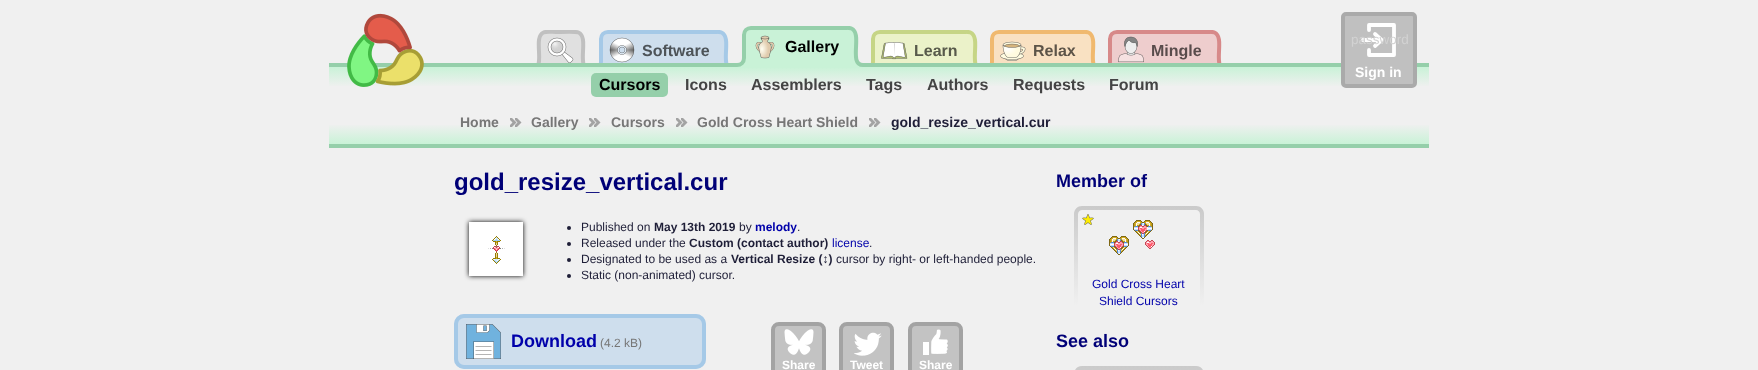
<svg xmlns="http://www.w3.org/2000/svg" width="1758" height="370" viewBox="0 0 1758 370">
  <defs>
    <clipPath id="clip1"><rect x="532" y="30" width="58" height="42"/></clipPath>
    <clipPath id="clip2"><rect x="683" y="30" width="50" height="42"/></clipPath>
    <clipPath id="clip3"><rect x="594" y="30" width="123" height="42"/></clipPath>
    <clipPath id="clip4"><rect x="932" y="30" width="50" height="42"/></clipPath>
    <clipPath id="clip5"><rect x="866" y="30" width="100" height="42"/></clipPath>
    <clipPath id="clip6"><rect x="1050" y="30" width="50" height="42"/></clipPath>
    <clipPath id="clip7"><rect x="985" y="30" width="99" height="42"/></clipPath>
    <clipPath id="clip8"><rect x="1176" y="30" width="50" height="42"/></clipPath>
    <clipPath id="clip9"><rect x="1103" y="30" width="107" height="42"/></clipPath>
    <linearGradient id="g1" gradientUnits="userSpaceOnUse" x1="879" y1="63" x2="879" y2="113"><stop offset="0" stop-color="rgb(149,207,170)"/><stop offset="0.08" stop-color="rgb(149,207,170)"/><stop offset="0.08" stop-color="rgb(201,242,215)"/><stop offset="0.48" stop-color="rgb(240,240,240)"/></linearGradient>
    <clipPath id="clip10"><rect x="813" y="26" width="50" height="42"/></clipPath>
    <clipPath id="clip11"><rect x="737" y="26" width="110" height="42"/></clipPath>
    <linearGradient id="g2" gradientUnits="userSpaceOnUse" x1="879" y1="144" x2="879" y2="72"><stop offset="0" stop-color="rgb(201,242,215)"/><stop offset="0.28" stop-color="rgb(240,240,240)"/></linearGradient>
    <linearGradient id="g3" gradientUnits="userSpaceOnUse" x1="1139" y1="206" x2="1139" y2="306"><stop offset="0" stop-color="rgb(202,202,202)"/><stop offset="1" stop-color="rgb(240,240,240)"/></linearGradient>
    <linearGradient id="g4" gradientUnits="userSpaceOnUse" x1="1139" y1="366" x2="1139" y2="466"><stop offset="0" stop-color="rgb(202,202,202)"/><stop offset="1" stop-color="rgb(240,240,240)"/></linearGradient>
  </defs>
  <rect width="100%" height="100%" fill="rgb(240,240,240)"/>
  <path d="M532 69C547 69 532 37 543 33C547 31 552 32 556 32C561 32 575 31 579 33C590 37 575 69 590 69V72H532Z" fill="rgb(224,224,224)"/>
  <g clip-path="url(#clip1)">
    <path d="M532 69C547 69 532 37.5 543.5 32.5C547 31 552 32 556 32C560.5 32 575 31 578.5 32.5C590 37.5 575 69 590 69" fill="none" stroke="rgb(192,192,192)" stroke-width="4"/>
  </g>
  <path d="M683 32H707C711 32 717 31 722 33C733 37 718 69 733 69V72H683Z" fill="rgb(206,222,237)"/>
  <g clip-path="url(#clip2)">
    <path d="M683 32H707C711.5 32 717.5 31 721.5 32.5C733 37.5 718 69 733 69" fill="none" stroke="rgb(165,201,231)" stroke-width="4"/>
  </g>
  <g clip-path="url(#clip3)">
    <path d="M594 72V69C598 69 601 66 601 62V39C601 35 604 32 608 32H794V72Z" fill="rgb(206,222,237)"/>
    <path d="M594 69C598 69 601 66 601 62V39C601 35 604 32 608 32H794" fill="none" stroke="rgb(165,201,231)" stroke-width="4"/>
  </g>
  <path d="M932 32H956C960 32 966 31 971 33C982 37 967 69 982 69V72H932Z" fill="rgb(235,242,201)"/>
  <g clip-path="url(#clip4)">
    <path d="M932 32H956C960.5 32 966.5 31 970.5 32.5C982 37.5 967 69 982 69" fill="none" stroke="rgb(198,213,134)" stroke-width="4"/>
  </g>
  <g clip-path="url(#clip5)">
    <path d="M866 72V69C870 69 873 66 873 62V39C873 35 876 32 880 32H1066V72Z" fill="rgb(235,242,201)"/>
    <path d="M866 69C870 69 873 66 873 62V39C873 35 876 32 880 32H1066" fill="none" stroke="rgb(198,213,134)" stroke-width="4"/>
  </g>
  <path d="M1050 32H1074C1078 32 1084 31 1089 33C1100 37 1085 69 1100 69V72H1050Z" fill="rgb(249,225,194)"/>
  <g clip-path="url(#clip6)">
    <path d="M1050 32H1074C1078.5 32 1084.5 31 1088.5 32.5C1100 37.5 1085 69 1100 69" fill="none" stroke="rgb(240,185,111)" stroke-width="4"/>
  </g>
  <g clip-path="url(#clip7)">
    <path d="M985 72V69C989 69 992 66 992 62V39C992 35 995 32 999 32H1185V72Z" fill="rgb(249,225,194)"/>
    <path d="M985 69C989 69 992 66 992 62V39C992 35 995 32 999 32H1185" fill="none" stroke="rgb(240,185,111)" stroke-width="4"/>
  </g>
  <path d="M1176 32H1200C1204 32 1210 31 1215 33C1226 37 1211 69 1226 69V72H1176Z" fill="rgb(238,205,205)"/>
  <g clip-path="url(#clip8)">
    <path d="M1176 32H1200C1204.5 32 1210.5 31 1214.5 32.5C1226 37.5 1211 69 1226 69" fill="none" stroke="rgb(215,137,137)" stroke-width="4"/>
  </g>
  <g clip-path="url(#clip9)">
    <path d="M1103 72V69C1107 69 1110 66 1110 62V39C1110 35 1113 32 1117 32H1303V72Z" fill="rgb(238,205,205)"/>
    <path d="M1103 69C1107 69 1110 66 1110 62V39C1110 35 1113 32 1117 32H1303" fill="none" stroke="rgb(215,137,137)" stroke-width="4"/>
  </g>
  <rect x="329" y="63" width="1100" height="23" fill="url(#g1)"/>
  <image x="347" y="13" width="77" height="74" href="pic1.png"/>
  <image x="547" y="37" width="27" height="26" href="pic2.png"/>
  <path d="M813 28H837C841 28 847 27 852 29C863 33 848 65 863 65V68H813Z" fill="rgb(201,242,215)"/>
  <g clip-path="url(#clip10)">
    <path d="M813 28H837C841.5 28 847.5 27 851.5 28.5C863 33.5 848 65 863 65" fill="none" stroke="rgb(149,207,170)" stroke-width="4"/>
  </g>
  <g clip-path="url(#clip11)">
    <path d="M737 68V65C741 65 744 62 744 58V35C744 31 747 28 751 28H937V68Z" fill="rgb(201,242,215)"/>
    <path d="M737 65C741 65 744 62 744 58V35C744 31 747 28 751 28H937" fill="none" stroke="rgb(149,207,170)" stroke-width="4"/>
  </g>
  <image x="755" y="35" width="20" height="24" href="pic3.png"/>
  <text x="785" y="52" font-family="Liberation Sans" font-size="16" font-weight="bold" fill="rgb(0,0,0)">Gallery</text>
  <rect x="591" y="73" width="77" height="24" rx="5" fill="rgb(149,207,170)"/>
  <text x="599" y="90" font-family="Liberation Sans" font-size="16" font-weight="bold" fill="rgb(0,0,0)">Cursors</text>
  <g font-family="Liberation Sans" font-size="16" font-weight="bold" fill="rgb(68,68,68)">
    <text x="685" y="90">Icons</text>
    <text x="751" y="90">Assemblers</text>
    <text x="866" y="90">Tags</text>
    <text x="927" y="90">Authors</text>
    <text x="1013" y="90">Requests</text>
    <text x="1109" y="90">Forum</text>
  </g>
  <image x="609" y="37" width="26" height="26" href="pic4.png"/>
  <text x="642" y="56" font-family="Liberation Sans" font-size="16" font-weight="bold" fill="rgb(77,83,88)">Software</text>
  <image x="881" y="42" width="27" height="18" href="pic5.png"/>
  <text x="914" y="56" font-family="Liberation Sans" font-size="16" font-weight="bold" fill="rgb(88,90,75)">Learn</text>
  <image x="1000" y="41" width="26" height="20" href="pic6.png"/>
  <text x="1033" y="56" font-family="Liberation Sans" font-size="16" font-weight="bold" fill="rgb(93,84,72)">Relax</text>
  <image x="1118" y="36" width="26" height="27" href="pic7.png"/>
  <text x="1151" y="56" font-family="Liberation Sans" font-size="16" font-weight="bold" fill="rgb(89,76,76)">Mingle</text>
  <rect x="1343" y="14" width="72" height="72" rx="3" fill="rgb(192,192,192)" stroke="rgb(170,170,170)" stroke-width="4"/>
  <path d="M1369 30V25H1394V55H1369V50M1363 40H1381.5M1375 34L1381.5 40L1375 46" fill="none" stroke="rgb(255,255,255)" stroke-width="3.8" stroke-linecap="round" stroke-linejoin="round"/>
  <text x="1351" y="44" font-family="Liberation Sans" font-size="13.5" fill="rgb(210,210,210)">password</text>
  <text x="1355" y="77" font-family="Liberation Sans" font-size="14" font-weight="bold" fill="rgb(255,255,255)">Sign in</text>
  <rect x="329" y="125" width="1100" height="19" fill="url(#g2)"/>
  <rect x="329" y="144" width="1100" height="4" fill="rgb(149,207,170)"/>
  <text x="460" y="127" font-family="Liberation Sans" font-size="14" font-weight="bold" fill="rgb(119,119,119)">Home</text>
  <image x="510" y="118" width="12" height="9" href="pic8.png"/>
  <text x="531" y="127" font-family="Liberation Sans" font-size="14" font-weight="bold" fill="rgb(119,119,119)">Gallery</text>
  <image x="589" y="118" width="12" height="9" href="pic8.png"/>
  <text x="611" y="127" font-family="Liberation Sans" font-size="14" font-weight="bold" fill="rgb(119,119,119)">Cursors</text>
  <image x="676" y="118" width="12" height="9" href="pic8.png"/>
  <text x="697" y="127" font-family="Liberation Sans" font-size="14" font-weight="bold" fill="rgb(119,119,119)">Gold Cross Heart Shield</text>
  <image x="869" y="118" width="12" height="9" href="pic8.png"/>
  <text x="891" y="127" font-family="Liberation Sans" font-size="14" font-weight="bold" fill="rgb(30,30,55)">gold_resize_vertical.cur</text>
  <text x="454" y="190" font-family="Liberation Sans" font-size="24" font-weight="bold" fill="rgb(0,0,119)">gold_resize_vertical.cur</text>
  <rect x="469" y="222" width="54" height="54" fill="rgb(0,0,0)" filter="blur(2.5px)"/>
  <rect x="469" y="222" width="54" height="54" fill="rgb(255,255,255)"/>
  <image x="488" y="236" width="17" height="28" href="pic9.png"/>
  <circle cx="569" cy="228" r="2" fill="rgb(30,30,55)"/>
  <text x="581" y="231" font-family="Liberation Sans" font-size="12" fill="rgb(30,30,55)">Published on</text>
  <text x="654" y="231" font-family="Liberation Sans" font-size="12" font-weight="bold" fill="rgb(30,30,55)">May 13th 2019</text>
  <text x="739" y="231" font-family="Liberation Sans" font-size="12" fill="rgb(30,30,55)">by</text>
  <text x="755" y="231" font-family="Liberation Sans" font-size="12" font-weight="bold" fill="rgb(0,0,170)">melody</text>
  <text x="797" y="231" font-family="Liberation Sans" font-size="12" fill="rgb(30,30,55)">.</text>
  <circle cx="569" cy="244" r="2" fill="rgb(30,30,55)"/>
  <text x="581" y="247" font-family="Liberation Sans" font-size="12" fill="rgb(30,30,55)">Released under the</text>
  <text x="689" y="247" font-family="Liberation Sans" font-size="12" font-weight="bold" fill="rgb(30,30,55)">Custom (contact author)</text>
  <text x="832" y="247" font-family="Liberation Sans" font-size="12" fill="rgb(0,0,170)">license</text>
  <text x="869" y="247" font-family="Liberation Sans" font-size="12" fill="rgb(30,30,55)">.</text>
  <circle cx="569" cy="260" r="2" fill="rgb(30,30,55)"/>
  <text x="581" y="263" font-family="Liberation Sans" font-size="12" fill="rgb(30,30,55)">Designated to be used as a</text>
  <text x="731" y="263" font-family="Liberation Sans" font-size="12" font-weight="bold" fill="rgb(30,30,55)">Vertical Resize (↕)</text>
  <text x="836" y="263" font-family="Liberation Sans" font-size="12" fill="rgb(30,30,55)">cursor by right- or left-handed people.</text>
  <circle cx="569" cy="276" r="2" fill="rgb(30,30,55)"/>
  <text x="581" y="279" font-family="Liberation Sans" font-size="12" fill="rgb(30,30,55)">Static (non-animated) cursor.</text>
  <rect x="454" y="314" width="252" height="55" rx="10" fill="rgb(206,222,237)"/>
  <image x="466" y="324" width="35" height="35" href="pic10.png"/>
  <rect x="456" y="316" width="248" height="51" rx="8" fill="none" stroke="rgb(165,201,231)" stroke-width="4"/>
  <text x="511" y="347" font-family="Liberation Sans" font-size="18" font-weight="bold" fill="rgb(0,0,170)">Download</text>
  <text x="600" y="347" font-family="Liberation Sans" font-size="12" fill="rgb(119,119,119)">(4.2 kB)</text>
  <rect x="773" y="324" width="51" height="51" rx="6" fill="rgb(195,195,195)" stroke="rgb(163,163,163)" stroke-width="4"/>
  <image x="784" y="329" width="30" height="26" href="pic11.png"/>
  <text x="782" y="369" font-family="Liberation Sans" font-size="12" font-weight="bold" fill="rgb(255,255,255)">Share</text>
  <rect x="841" y="324" width="51" height="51" rx="6" fill="rgb(195,195,195)" stroke="rgb(163,163,163)" stroke-width="4"/>
  <image x="854" y="332" width="28" height="24" href="pic12.png"/>
  <text x="850" y="369" font-family="Liberation Sans" font-size="12" font-weight="bold" fill="rgb(255,255,255)">Tweet</text>
  <rect x="910" y="324" width="51" height="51" rx="6" fill="rgb(195,195,195)" stroke="rgb(163,163,163)" stroke-width="4"/>
  <image x="923" y="329" width="25" height="26" href="pic13.png"/>
  <text x="919" y="369" font-family="Liberation Sans" font-size="12" font-weight="bold" fill="rgb(255,255,255)">Share</text>
  <text x="1056" y="187" font-family="Liberation Sans" font-size="18" font-weight="bold" fill="rgb(0,0,119)">Member of</text>
  <path d="M1082 206H1196C1200.5 206 1204 209.5 1204 214V306H1074V214C1074 209.5 1077.5 206 1082 206Z" fill="url(#g3)"/>
  <path d="M1082 210H1196C1198 210 1200 212 1200 214V306H1078V214C1078 212 1080 210 1082 210Z" fill="rgb(240,240,240)"/>
  <image x="1082" y="214" width="12" height="11" href="pic14.png"/>
  <image x="1109" y="220" width="46" height="35" href="pic15.png"/>
  <g font-family="Liberation Sans" font-size="12" fill="rgb(0,0,170)">
    <text x="1092" y="288">Gold Cross Heart</text>
    <text x="1099" y="305">Shield Cursors</text>
  </g>
  <text x="1056" y="347" font-family="Liberation Sans" font-size="18" font-weight="bold" fill="rgb(0,0,119)">See also</text>
  <path d="M1082 366H1196C1200.5 366 1204 369.5 1204 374V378H1074V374C1074 369.5 1077.5 366 1082 366Z" fill="url(#g4)"/>
</svg>
